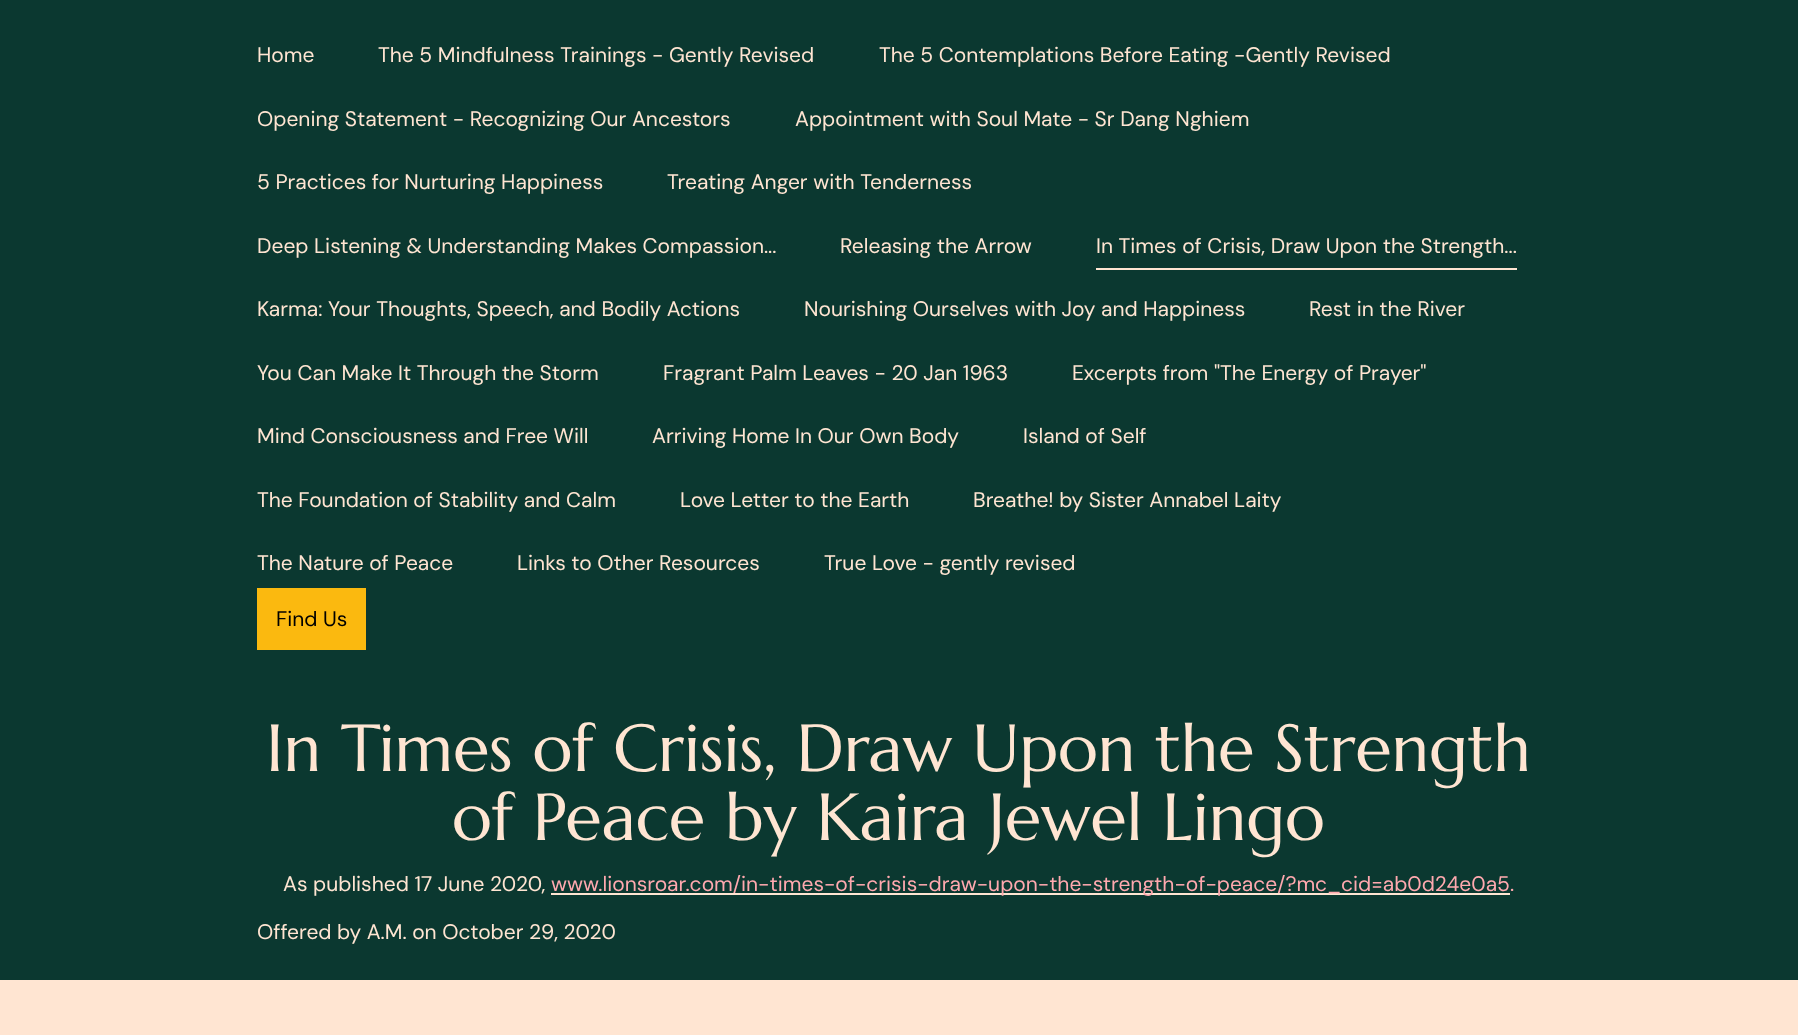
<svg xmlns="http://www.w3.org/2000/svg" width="1798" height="1035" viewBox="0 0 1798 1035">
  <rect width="100%" height="100%" fill="rgb(11,56,48)"/>
  <g font-family="DM Sans" font-size="21" fill="rgb(255,229,210)">
    <text x="257" y="62">Home</text>
    <text x="378" y="62">The 5 Mindfulness Trainings - Gently Revised</text>
    <text x="879" y="62">The 5 Contemplations Before Eating -Gently Revised</text>
    <text x="257" y="126">Opening Statement - Recognizing Our Ancestors</text>
    <text x="795" y="126">Appointment with Soul Mate - Sr Dang Nghiem</text>
    <text x="257" y="189">5 Practices for Nurturing Happiness</text>
    <text x="667" y="189">Treating Anger with Tenderness</text>
    <text x="257" y="253">Deep Listening &amp; Understanding Makes Compassion...</text>
    <text x="840" y="253">Releasing the Arrow</text>
    <text x="1096" y="253">In Times of Crisis, Draw Upon the Strength...</text>
  </g>
  <rect x="1096" y="268" width="421" height="2" fill="rgb(255,229,210)"/>
  <g font-family="DM Sans" font-size="21" fill="rgb(255,229,210)">
    <text x="257" y="316">Karma: Your Thoughts, Speech, and Bodily Actions</text>
    <text x="804" y="316">Nourishing Ourselves with Joy and Happiness</text>
    <text x="1309" y="316">Rest in the River</text>
    <text x="257" y="380">You Can Make It Through the Storm</text>
    <text x="663" y="380">Fragrant Palm Leaves - 20 Jan 1963</text>
    <text x="1072" y="380">Excerpts from "The Energy of Prayer"</text>
    <text x="257" y="443">Mind Consciousness and Free Will</text>
    <text x="652" y="443">Arriving Home In Our Own Body</text>
    <text x="1023" y="443">Island of Self</text>
    <text x="257" y="507">The Foundation of Stability and Calm</text>
    <text x="680" y="507">Love Letter to the Earth</text>
    <text x="973" y="507">Breathe! by Sister Annabel Laity</text>
    <text x="257" y="570">The Nature of Peace</text>
    <text x="517" y="570">Links to Other Resources</text>
    <text x="824" y="570">True Love - gently revised</text>
  </g>
  <rect x="257" y="588" width="109" height="62" fill="rgb(251,185,15)"/>
  <text x="276" y="626" font-family="DM Sans" font-size="21" fill="rgb(0,0,0)">Find Us</text>
  <g font-family="Marcellus" font-size="66.25" fill="rgb(255,229,210)">
    <text x="266" y="771">In Times of Crisis, Draw Upon the Strength</text>
    <text x="452" y="840">of Peace by Kaira Jewel Lingo</text>
  </g>
  <text x="283" y="891" font-family="DM Sans" font-size="21" fill="rgb(255,229,210)">As published 17 June 2020,</text>
  <rect x="551" y="893" width="959" height="2" fill="rgb(255,229,210)"/>
  <text x="551" y="891" font-family="DM Sans" font-size="21" fill="rgb(255,169,175)">www.lionsroar.com/in-times-of-crisis-draw-upon-the-strength-of-peace/?mc_cid=ab0d24e0a5.</text>
  <text x="257" y="939" font-family="DM Sans" font-size="21" fill="rgb(255,229,210)">Offered by A.M. on October 29, 2020</text>
  <rect x="0" y="980" width="1798" height="55" fill="rgb(255,229,210)"/>
</svg>
